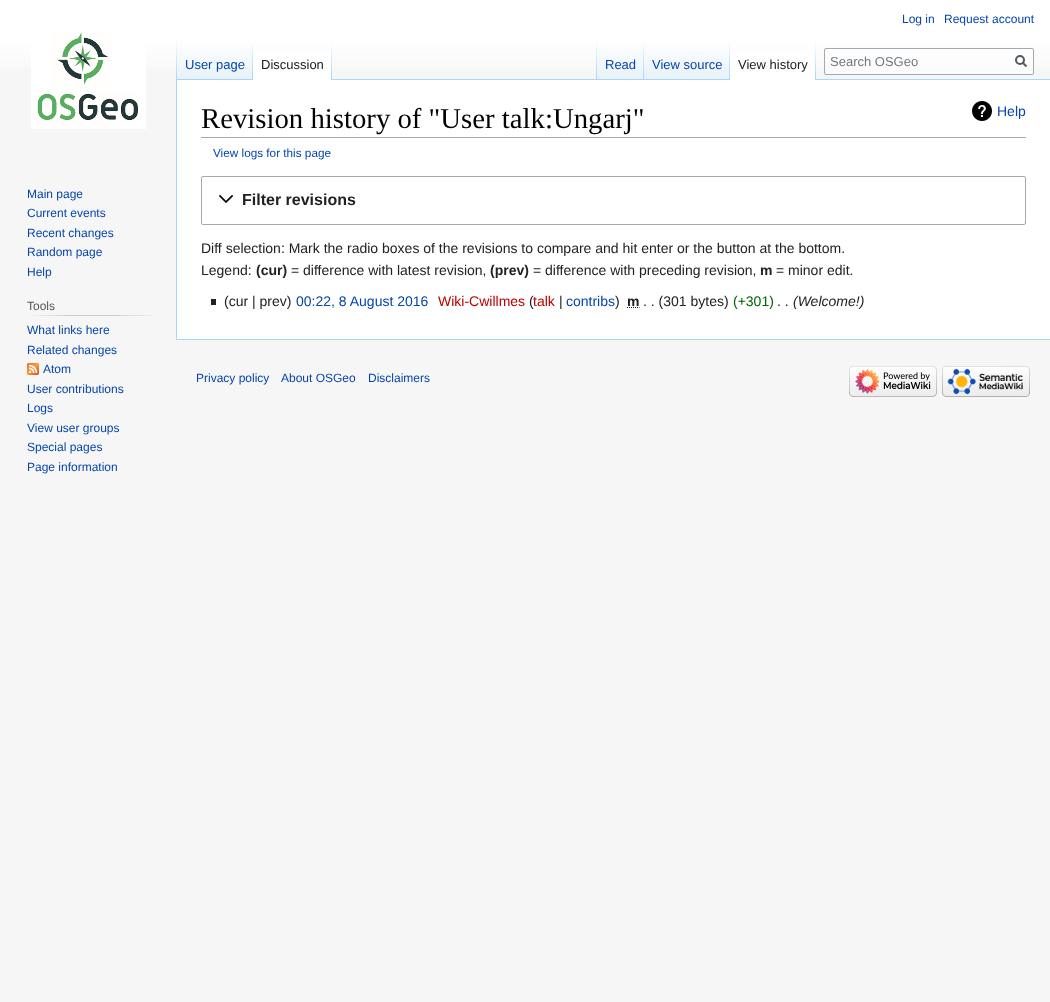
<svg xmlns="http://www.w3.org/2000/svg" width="1050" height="1002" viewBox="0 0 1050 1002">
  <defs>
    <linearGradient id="g1" gradientUnits="userSpaceOnUse" x1="525" y1="0" x2="525" y2="80"><stop offset="0.5" stop-color="rgb(255,255,255)"/><stop offset="1" stop-color="rgb(246,246,246)"/></linearGradient>
    <linearGradient id="g2" gradientUnits="userSpaceOnUse" x1="177" y1="40" x2="177" y2="80"><stop offset="0" stop-color="rgb(167,215,249)" stop-opacity="0"/><stop offset="1" stop-color="rgb(167,215,249)"/></linearGradient>
    <linearGradient id="g3" gradientUnits="userSpaceOnUse" x1="215" y1="80" x2="215" y2="40"><stop offset="0" stop-color="rgb(119,193,246)"/><stop offset="0.03" stop-color="rgb(232,242,248)"/><stop offset="1" stop-color="rgb(255,255,255)"/></linearGradient>
    <linearGradient id="g4" gradientUnits="userSpaceOnUse" x1="253" y1="40" x2="253" y2="80"><stop offset="0" stop-color="rgb(167,215,249)" stop-opacity="0"/><stop offset="1" stop-color="rgb(167,215,249)"/></linearGradient>
    <linearGradient id="g5" gradientUnits="userSpaceOnUse" x1="332" y1="40" x2="332" y2="80"><stop offset="0" stop-color="rgb(255,255,255)"/><stop offset="1" stop-color="rgb(167,215,249)"/></linearGradient>
    <linearGradient id="g6" gradientUnits="userSpaceOnUse" x1="597" y1="40" x2="597" y2="80"><stop offset="0" stop-color="rgb(167,215,249)" stop-opacity="0"/><stop offset="1" stop-color="rgb(167,215,249)"/></linearGradient>
    <linearGradient id="g7" gradientUnits="userSpaceOnUse" x1="621" y1="80" x2="621" y2="40"><stop offset="0" stop-color="rgb(119,193,246)"/><stop offset="0.03" stop-color="rgb(232,242,248)"/><stop offset="1" stop-color="rgb(255,255,255)"/></linearGradient>
    <linearGradient id="g8" gradientUnits="userSpaceOnUse" x1="644" y1="40" x2="644" y2="80"><stop offset="0" stop-color="rgb(167,215,249)" stop-opacity="0"/><stop offset="1" stop-color="rgb(167,215,249)"/></linearGradient>
    <linearGradient id="g9" gradientUnits="userSpaceOnUse" x1="687" y1="80" x2="687" y2="40"><stop offset="0" stop-color="rgb(119,193,246)"/><stop offset="0.03" stop-color="rgb(232,242,248)"/><stop offset="1" stop-color="rgb(255,255,255)"/></linearGradient>
    <linearGradient id="g10" gradientUnits="userSpaceOnUse" x1="730" y1="40" x2="730" y2="80"><stop offset="0" stop-color="rgb(167,215,249)" stop-opacity="0"/><stop offset="1" stop-color="rgb(167,215,249)"/></linearGradient>
    <linearGradient id="g11" gradientUnits="userSpaceOnUse" x1="816" y1="40" x2="816" y2="80"><stop offset="0" stop-color="rgb(255,255,255)"/><stop offset="1" stop-color="rgb(167,215,249)"/></linearGradient>
    <linearGradient id="g12" gradientUnits="userSpaceOnUse" x1="27" y1="316" x2="158" y2="316"><stop offset="0" stop-color="rgb(246,246,246)"/><stop offset="0.33" stop-color="rgb(200,204,209)"/><stop offset="0.66" stop-color="rgb(200,204,209)"/><stop offset="1" stop-color="rgb(246,246,246)"/></linearGradient>
  </defs>
  <rect width="100%" height="100%" fill="rgb(246,246,246)"/>
  <rect x="0" y="0" width="1050" height="69" fill="url(#g1)"/>
  <g font-family="Liberation Sans" font-size="12" fill="rgb(6,69,173)">
    <text x="902" y="23">Log in</text>
    <text x="944" y="23">Request account</text>
  </g>
  <rect x="176" y="339" width="874" height="1" fill="rgb(167,215,249)"/>
  <rect x="176" y="79" width="1" height="261" fill="rgb(167,215,249)"/>
  <rect x="176" y="40" width="1" height="40" fill="url(#g2)"/>
  <rect x="177" y="46" width="76" height="34" fill="url(#g3)"/>
  <rect x="252" y="40" width="1" height="40" fill="url(#g4)"/>
  <text x="185" y="69" font-family="Liberation Sans" font-size="13" fill="rgb(6,69,173)">User page</text>
  <rect x="253" y="51" width="78" height="29" fill="rgb(255,255,255)"/>
  <rect x="331" y="40" width="1" height="40" fill="url(#g5)"/>
  <text x="261" y="69" font-family="Liberation Sans" font-size="13" fill="rgb(32,33,34)">Discussion</text>
  <rect x="332" y="79" width="718" height="1" fill="rgb(167,215,249)"/>
  <rect x="596" y="40" width="1" height="40" fill="url(#g6)"/>
  <rect x="597" y="46" width="47" height="33" fill="url(#g7)"/>
  <rect x="643" y="40" width="1" height="40" fill="url(#g8)"/>
  <text x="605" y="69" font-family="Liberation Sans" font-size="13" fill="rgb(6,69,173)">Read</text>
  <rect x="644" y="46" width="86" height="33" fill="url(#g9)"/>
  <rect x="729" y="40" width="1" height="40" fill="url(#g10)"/>
  <text x="652" y="69" font-family="Liberation Sans" font-size="13" fill="rgb(6,69,173)">View source</text>
  <rect x="730" y="51" width="85" height="29" fill="rgb(255,255,255)"/>
  <rect x="815" y="40" width="1" height="40" fill="url(#g11)"/>
  <text x="738" y="69" font-family="Liberation Sans" font-size="13" fill="rgb(32,33,34)">View history</text>
  <rect x="824.5" y="48.5" width="209" height="26" rx="1.5" fill="rgba(255,255,255,0.5)" stroke="rgb(162,169,177)"/>
  <text x="830" y="66" font-family="Liberation Sans" font-size="13" fill="rgb(114,119,125)">Search OSGeo</text>
  <path d="M1026.5 66.5L1022.5 62.5" fill="none" stroke="rgb(84,89,93)" stroke-width="2"/>
  <circle cx="1020" cy="60" r="4" fill="none" stroke="rgb(84,89,93)" stroke-width="2"/>
  <image x="31" y="32" width="115" height="97" href="pic1.png"/>
  <g font-family="Liberation Sans" font-size="12" fill="rgb(6,69,173)">
    <text>
      <tspan x="27" y="198">Main page</tspan>
      <tspan x="27" y="217">Current events</tspan>
      <tspan x="27" y="237">Recent changes</tspan>
      <tspan x="27" y="256">Random page</tspan>
      <tspan x="27" y="276">Help</tspan>
    </text>
  </g>
  <rect x="27" y="315" width="131" height="1" fill="url(#g12)"/>
  <text x="27" y="310" font-family="Liberation Sans" font-size="12" fill="rgb(84,89,93)">Tools</text>
  <g font-family="Liberation Sans" font-size="12" fill="rgb(6,69,173)">
    <text>
      <tspan x="27" y="334">What links here</tspan>
      <tspan x="27" y="354">Related changes</tspan>
    </text>
  </g>
  <image x="27" y="363" width="12" height="12" href="pic2.png"/>
  <g font-family="Liberation Sans" font-size="12" fill="rgb(6,69,173)">
    <text x="43" y="373">Atom</text>
    <text>
      <tspan x="27" y="393">User contributions</tspan>
      <tspan x="27" y="412">Logs</tspan>
      <tspan x="27" y="432">View user groups</tspan>
      <tspan x="27" y="451">Special pages</tspan>
      <tspan x="27" y="471">Page information</tspan>
    </text>
  </g>
  <rect x="177" y="80" width="873" height="259" fill="rgb(255,255,255)"/>
  <rect x="201" y="137" width="825" height="1" fill="rgb(162,169,177)"/>
  <text x="201" y="128" font-family="Liberation Serif" font-size="28.75" fill="rgb(0,0,0)">Revision history of "User talk:Ungarj"</text>
  <image x="972" y="101" width="20" height="20" href="pic3.png"/>
  <text x="997" y="116" font-family="Liberation Sans" font-size="14" fill="rgb(6,69,173)">Help</text>
  <text x="213" y="157" font-family="Liberation Sans" font-size="11.75" fill="rgb(6,69,173)">View logs for this page</text>
  <rect x="201.5" y="176.5" width="824" height="48" rx="1.5" fill="none" stroke="rgb(162,169,177)"/>
  <image x="219" y="195" width="15" height="8" href="pic4.png"/>
  <text x="242" y="205" font-family="Liberation Sans" font-size="16" font-weight="bold" fill="rgb(32,33,34)">Filter revisions</text>
  <g font-family="Liberation Sans" font-size="14" fill="rgb(32,33,34)">
    <text>
      <tspan x="201" y="253">Diff selection: Mark the radio boxes of the revisions to compare and hit enter or the button at the bottom.</tspan>
      <tspan x="201" y="275">Legend:</tspan>
    </text>
  </g>
  <text x="256" y="275" font-family="Liberation Sans" font-size="14" font-weight="bold" fill="rgb(32,33,34)">(cur)</text>
  <text x="291" y="275" font-family="Liberation Sans" font-size="14" fill="rgb(32,33,34)">= difference with latest revision,</text>
  <text x="490" y="275" font-family="Liberation Sans" font-size="14" font-weight="bold" fill="rgb(32,33,34)">(prev)</text>
  <text x="533" y="275" font-family="Liberation Sans" font-size="14" fill="rgb(32,33,34)">= difference with preceding revision,</text>
  <text x="760" y="275" font-family="Liberation Sans" font-size="14" font-weight="bold" fill="rgb(32,33,34)">m</text>
  <text x="776" y="275" font-family="Liberation Sans" font-size="14" fill="rgb(32,33,34)">= minor edit.</text>
  <rect x="211" y="299" width="5" height="6" fill="rgb(32,33,34)"/>
  <text x="224" y="306" font-family="Liberation Sans" font-size="14" fill="rgb(32,33,34)">(cur | prev)</text>
  <text x="296" y="306" font-family="Liberation Sans" font-size="14" fill="rgb(6,69,173)">00:22, 8 August 2016</text>
  <text x="438" y="306" font-family="Liberation Sans" font-size="14" fill="rgb(186,0,0)">Wiki-Cwillmes</text>
  <text x="529" y="306" font-family="Liberation Sans" font-size="14" fill="rgb(32,33,34)">(</text>
  <text x="533" y="306" font-family="Liberation Sans" font-size="14" fill="rgb(186,0,0)">talk</text>
  <text x="559" y="306" font-family="Liberation Sans" font-size="14" fill="rgb(32,33,34)">|</text>
  <text x="566" y="306" font-family="Liberation Sans" font-size="14" fill="rgb(6,69,173)">contribs</text>
  <text x="615" y="306" font-family="Liberation Sans" font-size="14" fill="rgb(32,33,34)">)</text>
  <text x="627" y="306" font-family="Liberation Sans" font-size="14" font-weight="bold" fill="rgb(32,33,34)">m</text>
  <path d="M627 307.5H639.5" fill="none" stroke="rgb(32,33,34)" stroke-dasharray="1 1"/>
  <text x="643" y="306" font-family="Liberation Sans" font-size="14" fill="rgb(32,33,34)">. . (301 bytes)</text>
  <text x="733" y="306" font-family="Liberation Sans" font-size="14" fill="rgb(0,100,0)">(+301)</text>
  <text x="777" y="306" font-family="Liberation Sans" font-size="14" fill="rgb(32,33,34)">. .</text>
  <text x="793" y="306" font-family="Liberation Sans" font-size="14" font-style="italic" fill="rgb(32,33,34)">(Welcome!)</text>
  <g font-family="Liberation Sans" font-size="12" fill="rgb(6,69,173)">
    <text x="196" y="382">Privacy policy</text>
    <text x="281" y="382">About OSGeo</text>
    <text x="368" y="382">Disclaimers</text>
  </g>
  <image x="849" y="366" width="88" height="31" href="pic5.png"/>
  <image x="942" y="366" width="88" height="31" href="pic6.png"/>
</svg>
